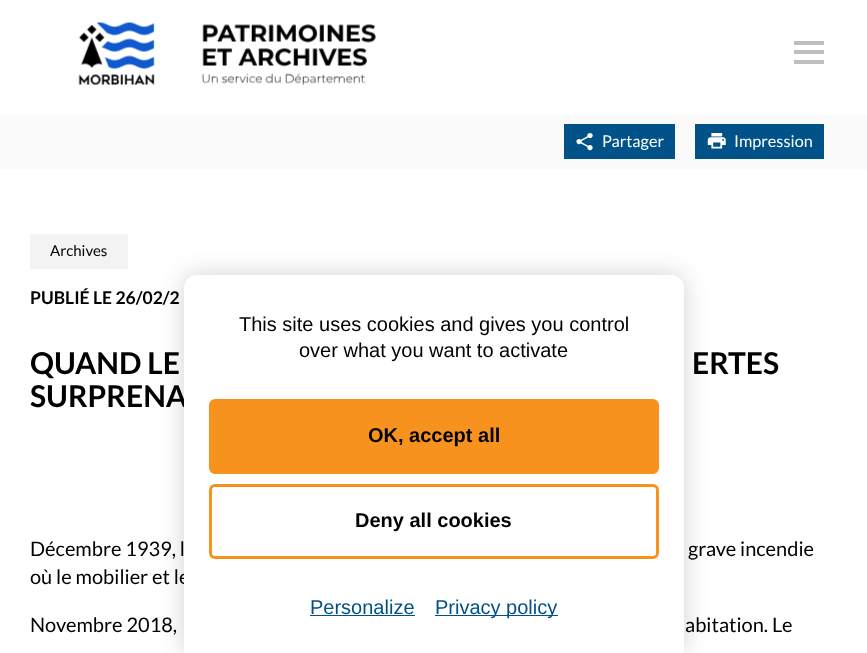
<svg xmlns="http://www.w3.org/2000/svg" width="867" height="653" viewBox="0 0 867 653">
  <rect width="100%" height="100%" fill="rgb(255,255,255)"/>
  <image x="78" y="22" width="298" height="64" href="pic1.png"/>
  <rect x="794" y="41" width="30" height="4" fill="rgb(190,190,190)"/>
  <rect x="794" y="50" width="30" height="4" fill="rgb(190,190,190)"/>
  <rect x="794" y="60" width="30" height="4" fill="rgb(190,190,190)"/>
  <rect x="0" y="114" width="867" height="55" fill="rgb(250,250,251)"/>
  <rect x="564" y="124" width="111" height="35" fill="rgb(0,82,136)"/>
  <image x="576" y="133" width="17" height="18" href="pic2.png"/>
  <text x="602" y="147" font-family="Lato" font-size="16.25" fill="rgb(255,255,255)">Partager</text>
  <rect x="695" y="124" width="129" height="35" fill="rgb(0,82,136)"/>
  <image x="707" y="133" width="19" height="16" href="pic3.png"/>
  <text x="734" y="147" font-family="Lato" font-size="16.25" fill="rgb(255,255,255)">Impression</text>
  <rect x="30" y="234" width="98" height="35" fill="rgb(243,243,243)"/>
  <text x="50" y="256" font-family="Lato" font-size="15" fill="rgb(0,0,0)">Archives</text>
  <text x="30" y="304" font-family="Lato" font-size="17.5" font-weight="bold" fill="rgb(0,0,0)">PUBLIÉ LE 26/02/2</text>
  <g font-family="Lato" font-size="30" font-weight="bold" fill="rgb(0,0,0)">
    <text x="30" y="374">QUAND LE</text>
    <text x="692" y="374">ERTES</text>
    <text x="30" y="407">SURPRENA</text>
  </g>
  <g font-family="Lato" font-size="20" fill="rgb(0,0,0)">
    <text x="30" y="556">Décembre 1939, l</text>
    <text x="688" y="556">grave incendie</text>
    <text x="30" y="584">où le mobilier et le</text>
    <text x="30" y="632">Novembre 2018,</text>
    <text x="685" y="632">abitation. Le</text>
  </g>
  <rect x="184" y="275" width="500" height="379" rx="13" fill="rgba(0,0,0,0.18)" filter="blur(12.5px)"/>
  <path d="M197 275H671C678 275 684 281 684 288V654H184V288C184 281 190 275 197 275Z" fill="rgb(255,255,255)"/>
  <g font-family="Liberation Sans" font-size="20" fill="rgb(0,0,0)">
    <text x="239" y="331">This site uses cookies and gives you control</text>
    <text x="299" y="357">over what you want to activate</text>
  </g>
  <rect x="210.5" y="400.5" width="447" height="72" rx="4.5" fill="rgb(247,146,31)" stroke="rgb(247,146,31)" stroke-width="3"/>
  <text x="368" y="442" font-family="Liberation Sans" font-size="20" font-weight="bold" fill="rgb(0,0,0)">OK, accept all</text>
  <rect x="210.5" y="485.5" width="447" height="72" rx="4.5" fill="none" stroke="rgb(247,146,31)" stroke-width="3"/>
  <text x="355" y="527" font-family="Liberation Sans" font-size="20" font-weight="bold" fill="rgb(0,0,0)">Deny all cookies</text>
  <text x="310" y="614" font-family="Liberation Sans" font-size="20" fill="rgb(0,81,135)">Personalize</text>
  <rect x="310" y="615" width="105" height="1" fill="rgb(0,81,135)"/>
  <rect x="435" y="615" width="123" height="1" fill="rgb(0,81,135)"/>
  <text x="435" y="614" font-family="Liberation Sans" font-size="20" fill="rgb(0,81,135)">Privacy policy</text>
</svg>
